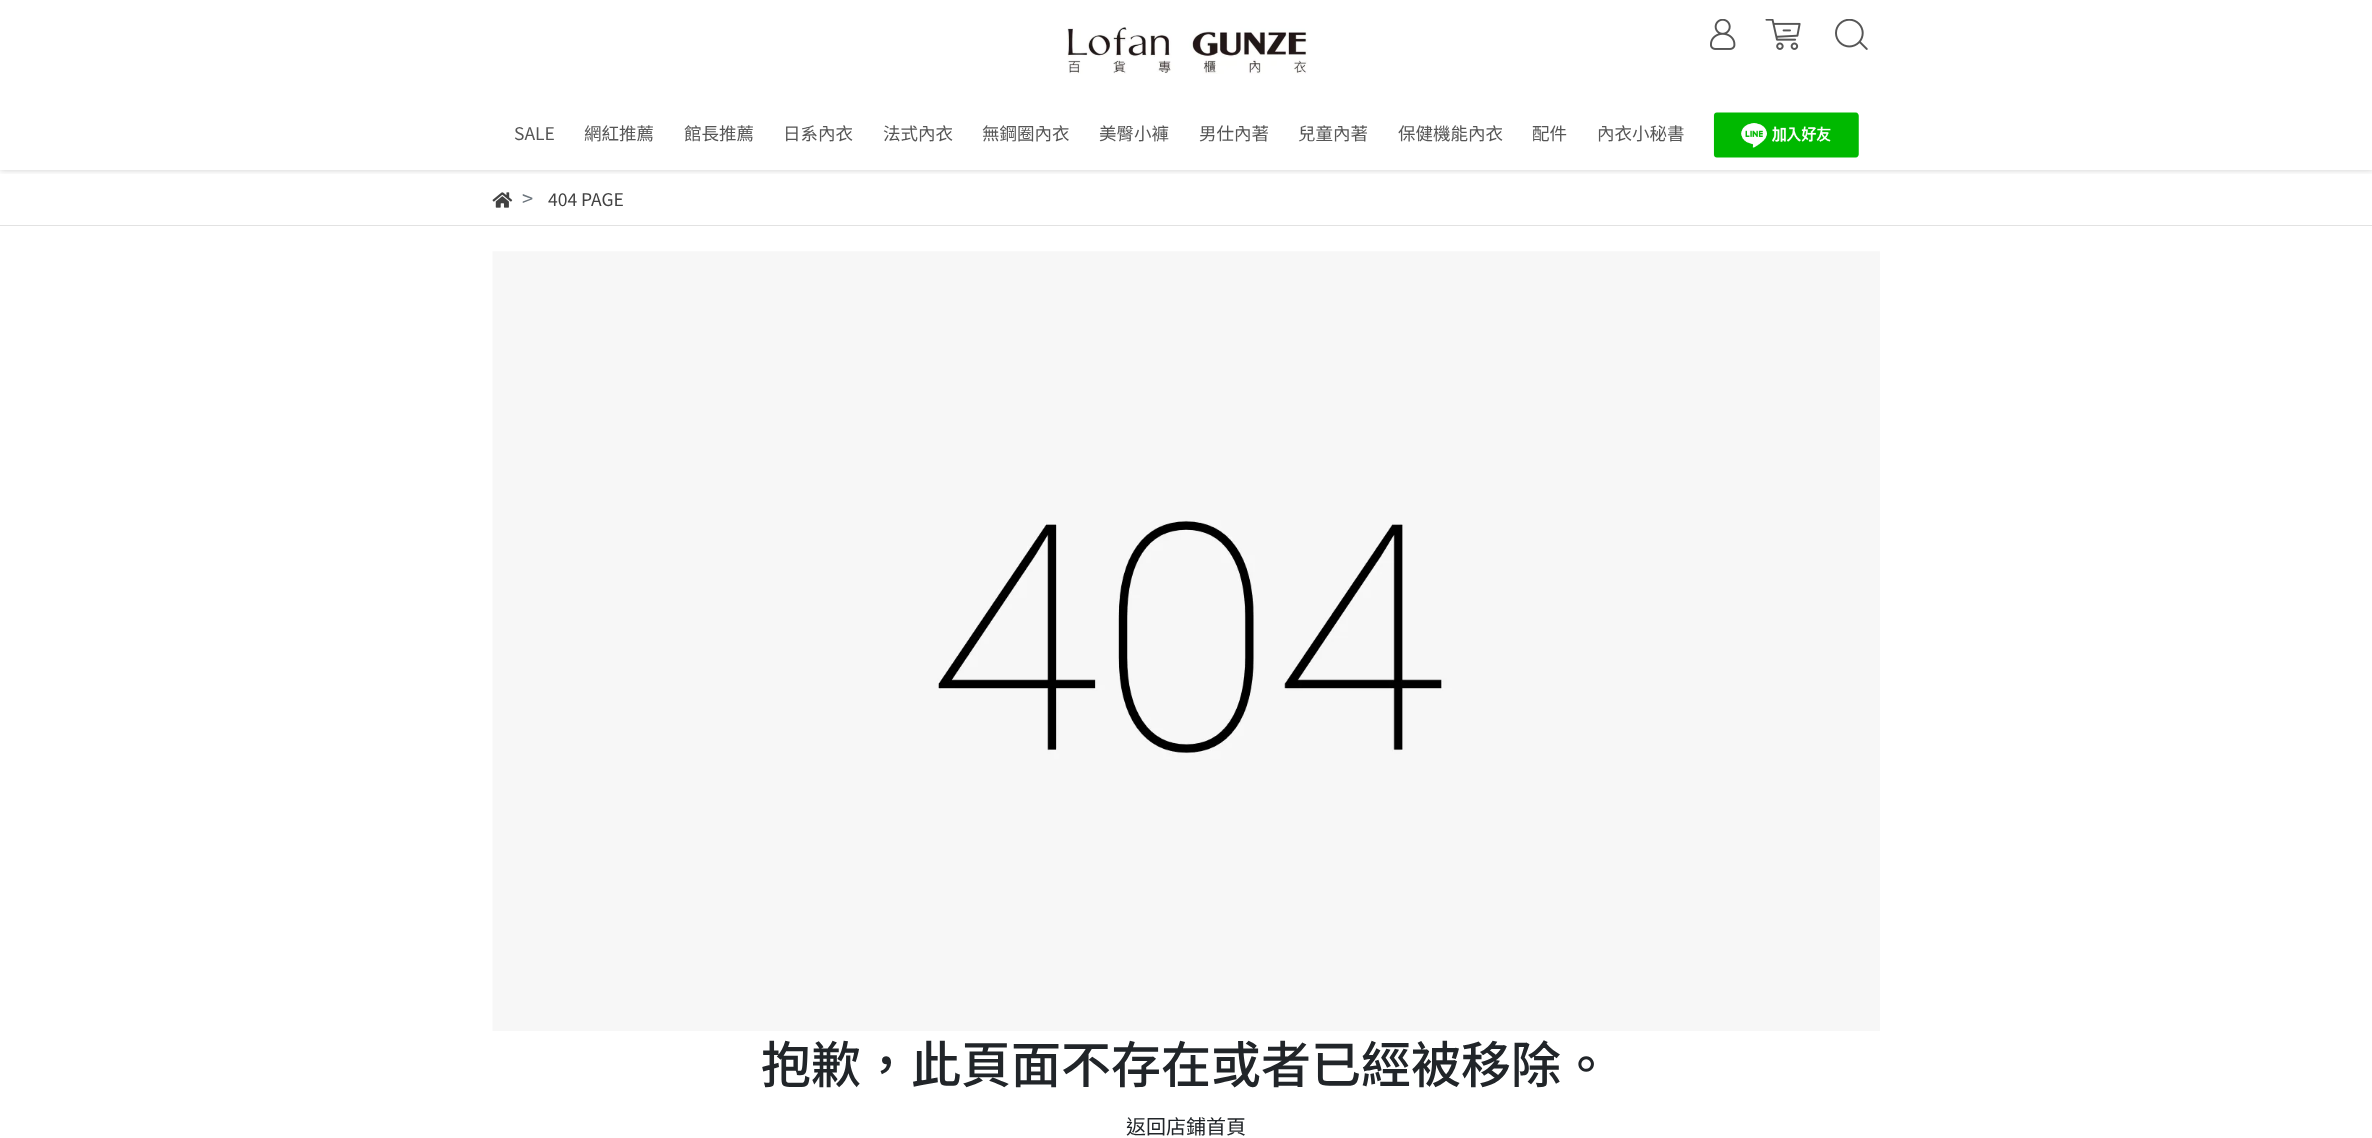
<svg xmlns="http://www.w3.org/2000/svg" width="2372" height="1138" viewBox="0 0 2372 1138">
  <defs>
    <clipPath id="clip1"><rect x="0" y="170" width="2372" height="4"/></clipPath>
  </defs>
  <rect width="100%" height="100%" fill="rgb(255,255,255)"/>
  <g clip-path="url(#clip1)">
    <rect x="0" y="0" width="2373" height="170" fill="rgba(0,0,0,0.2)" filter="blur(3px)"/>
  </g>
  <image x="1067" y="27" width="241" height="47" href="pic1.png"/>
  <image x="1710" y="19" width="26" height="31" href="pic2.png"/>
  <image x="1765" y="19" width="36" height="31" href="pic3.png"/>
  <image x="1835" y="19" width="33" height="31" href="pic4.png"/>
  <g font-family="Noto Sans TC" font-size="17.5" fill="rgb(86,86,86)">
    <text x="514" y="140">SALE</text>
    <text x="584" y="140">網紅推薦</text>
    <text x="684" y="140">館長推薦</text>
    <text x="783" y="140">日系內衣</text>
    <text x="883" y="140">法式內衣</text>
    <text x="982" y="140">無鋼圈內衣</text>
    <text x="1099" y="140">美臀小褲</text>
    <text x="1199" y="140">男仕內著</text>
    <text x="1298" y="140">兒童內著</text>
    <text x="1398" y="140">保健機能內衣</text>
    <text x="1532" y="140">配件</text>
    <text x="1597" y="140">內衣小秘書</text>
  </g>
  <image x="1713" y="112" width="146" height="46" href="pic5.png"/>
  <rect x="0" y="225" width="2372" height="1" fill="rgb(226,226,226)"/>
  <image x="492" y="192" width="21" height="16" href="pic6.png"/>
  <text x="522" y="206" font-family="Noto Sans TC" font-size="20" fill="rgb(108,117,125)">&gt;</text>
  <text x="548" y="206" font-family="Noto Sans TC" font-size="17.5" fill="rgb(66,66,66)">404 PAGE</text>
  <image x="492" y="251" width="1388" height="780" href="pic7.png"/>
  <text x="761" y="1083" font-family="Noto Sans TC" font-size="50" font-weight="500" fill="rgb(33,37,41)">抱歉，此頁面不存在或者已經被移除。</text>
  <text x="1126" y="1134" font-family="Noto Sans TC" font-size="20" fill="rgb(33,37,41)">返回店鋪首頁</text>
</svg>
